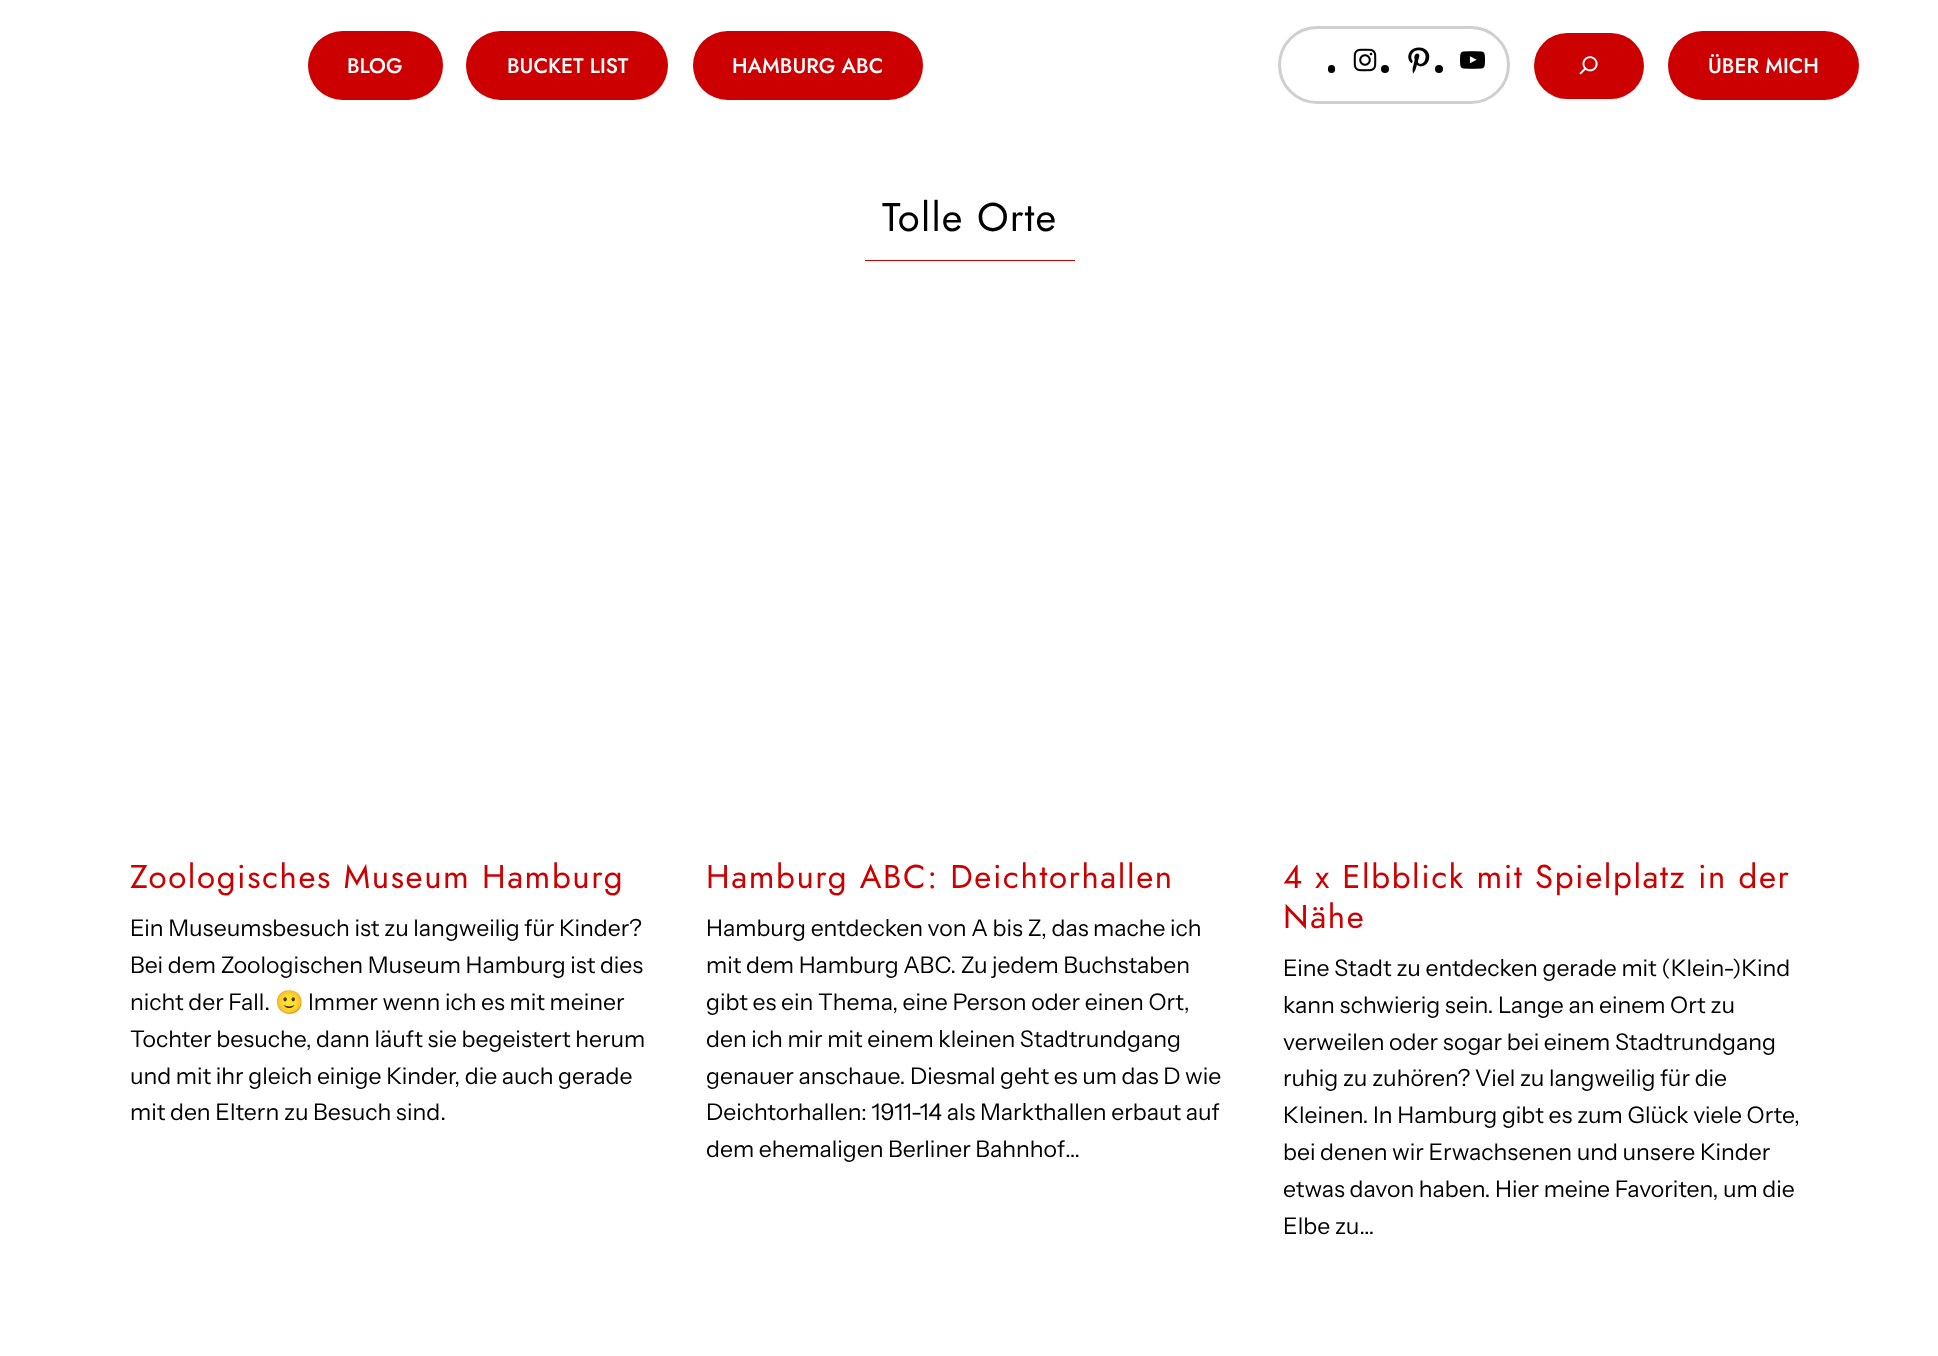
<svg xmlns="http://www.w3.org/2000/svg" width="1938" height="1356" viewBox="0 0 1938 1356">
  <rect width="100%" height="100%" fill="rgb(255,255,255)"/>
  <rect x="308" y="31" width="135" height="69" rx="34.5" fill="rgb(204,0,0)"/>
  <text x="347" y="73" font-family="Jost" font-size="21" font-weight="500" fill="rgb(255,255,255)">BLOG</text>
  <rect x="466" y="31" width="202" height="69" rx="34.5" fill="rgb(204,0,0)"/>
  <text x="507" y="73" font-family="Jost" font-size="21" font-weight="500" fill="rgb(255,255,255)">BUCKET LIST</text>
  <rect x="693" y="31" width="230" height="69" rx="34.5" fill="rgb(204,0,0)"/>
  <text x="732" y="73" font-family="Jost" font-size="21" font-weight="500" fill="rgb(255,255,255)">HAMBURG ABC</text>
  <rect x="1279.5" y="27.5" width="229" height="75" rx="37.5" fill="none" stroke="rgb(207,207,207)" stroke-width="3"/>
  <rect x="1328" y="65" width="7" height="8" rx="3.5" fill="rgb(0,0,0)"/>
  <image x="1353" y="48" width="24" height="24" href="pic1.png"/>
  <circle cx="1385" cy="69" r="4" fill="rgb(0,0,0)"/>
  <image x="1408" y="47" width="22" height="27" href="pic2.png"/>
  <circle cx="1439" cy="69" r="4" fill="rgb(0,0,0)"/>
  <image x="1460" y="51" width="25" height="18" href="pic3.png"/>
  <rect x="1534" y="33" width="110" height="66" rx="33" fill="rgb(204,0,0)"/>
  <image x="1579" y="56" width="19" height="19" href="pic4.png"/>
  <rect x="1668" y="31" width="191" height="69" rx="34.5" fill="rgb(204,0,0)"/>
  <text x="1708" y="73" font-family="Jost" font-size="21" font-weight="500" fill="rgb(255,255,255)">ÜBER MICH</text>
  <text x="882" y="231" font-family="Jost" font-size="40" letter-spacing="1.25" fill="rgb(0,0,0)">Tolle Orte</text>
  <rect x="865" y="260" width="210" height="1" fill="rgb(204,0,0)"/>
  <text x="130" y="888" font-family="Jost" font-size="33" letter-spacing="1.6" fill="rgb(204,0,0)">Zoologisches Museum Hamburg</text>
  <g font-family="Instrument Sans" font-size="23" fill="rgb(0,0,0)">
    <text>
      <tspan x="130" y="936">Ein Museumsbesuch ist zu langweilig für Kinder?</tspan>
      <tspan x="130" y="973">Bei dem Zoologischen Museum Hamburg ist dies</tspan>
      <tspan x="130" y="1010">nicht der Fall.</tspan>
    </text>
  </g>
  <text x="275" y="1010" font-family="Noto Color Emoji" font-size="23" fill="rgb(0,0,0)">🙂</text>
  <g font-family="Instrument Sans" font-size="23" fill="rgb(0,0,0)">
    <text x="308" y="1010">Immer wenn ich es mit meiner</text>
    <text>
      <tspan x="130" y="1047">Tochter besuche, dann läuft sie begeistert herum</tspan>
      <tspan x="130" y="1084">und mit ihr gleich einige Kinder, die auch gerade</tspan>
      <tspan x="130" y="1120">mit den Eltern zu Besuch sind.</tspan>
    </text>
  </g>
  <text x="706" y="888" font-family="Jost" font-size="33" letter-spacing="1.6" fill="rgb(204,0,0)">Hamburg ABC: Deichtorhallen</text>
  <g font-family="Instrument Sans" font-size="23" fill="rgb(0,0,0)">
    <text>
      <tspan x="706" y="936">Hamburg entdecken von A bis Z, das mache ich</tspan>
      <tspan x="706" y="973">mit dem Hamburg ABC. Zu jedem Buchstaben</tspan>
      <tspan x="706" y="1010">gibt es ein Thema, eine Person oder einen Ort,</tspan>
      <tspan x="706" y="1047">den ich mir mit einem kleinen Stadtrundgang</tspan>
      <tspan x="706" y="1084">genauer anschaue. Diesmal geht es um das D wie</tspan>
      <tspan x="706" y="1120">Deichtorhallen: 1911-14 als Markthallen erbaut auf</tspan>
      <tspan x="706" y="1157">dem ehemaligen Berliner Bahnhof…</tspan>
    </text>
  </g>
  <g font-family="Jost" font-size="33" letter-spacing="1.6" fill="rgb(204,0,0)">
    <text>
      <tspan x="1283" y="888">4 x Elbblick mit Spielplatz in der</tspan>
      <tspan x="1283" y="928">Nähe</tspan>
    </text>
  </g>
  <g font-family="Instrument Sans" font-size="23" fill="rgb(0,0,0)">
    <text>
      <tspan x="1283" y="976">Eine Stadt zu entdecken gerade mit (Klein-)Kind</tspan>
      <tspan x="1283" y="1013">kann schwierig sein. Lange an einem Ort zu</tspan>
      <tspan x="1283" y="1050">verweilen oder sogar bei einem Stadtrundgang</tspan>
      <tspan x="1283" y="1086">ruhig zu zuhören? Viel zu langweilig für die</tspan>
      <tspan x="1283" y="1123">Kleinen. In Hamburg gibt es zum Glück viele Orte,</tspan>
      <tspan x="1283" y="1160">bei denen wir Erwachsenen und unsere Kinder</tspan>
      <tspan x="1283" y="1197">etwas davon haben. Hier meine Favoriten, um die</tspan>
      <tspan x="1283" y="1234">Elbe zu…</tspan>
    </text>
  </g>
</svg>
